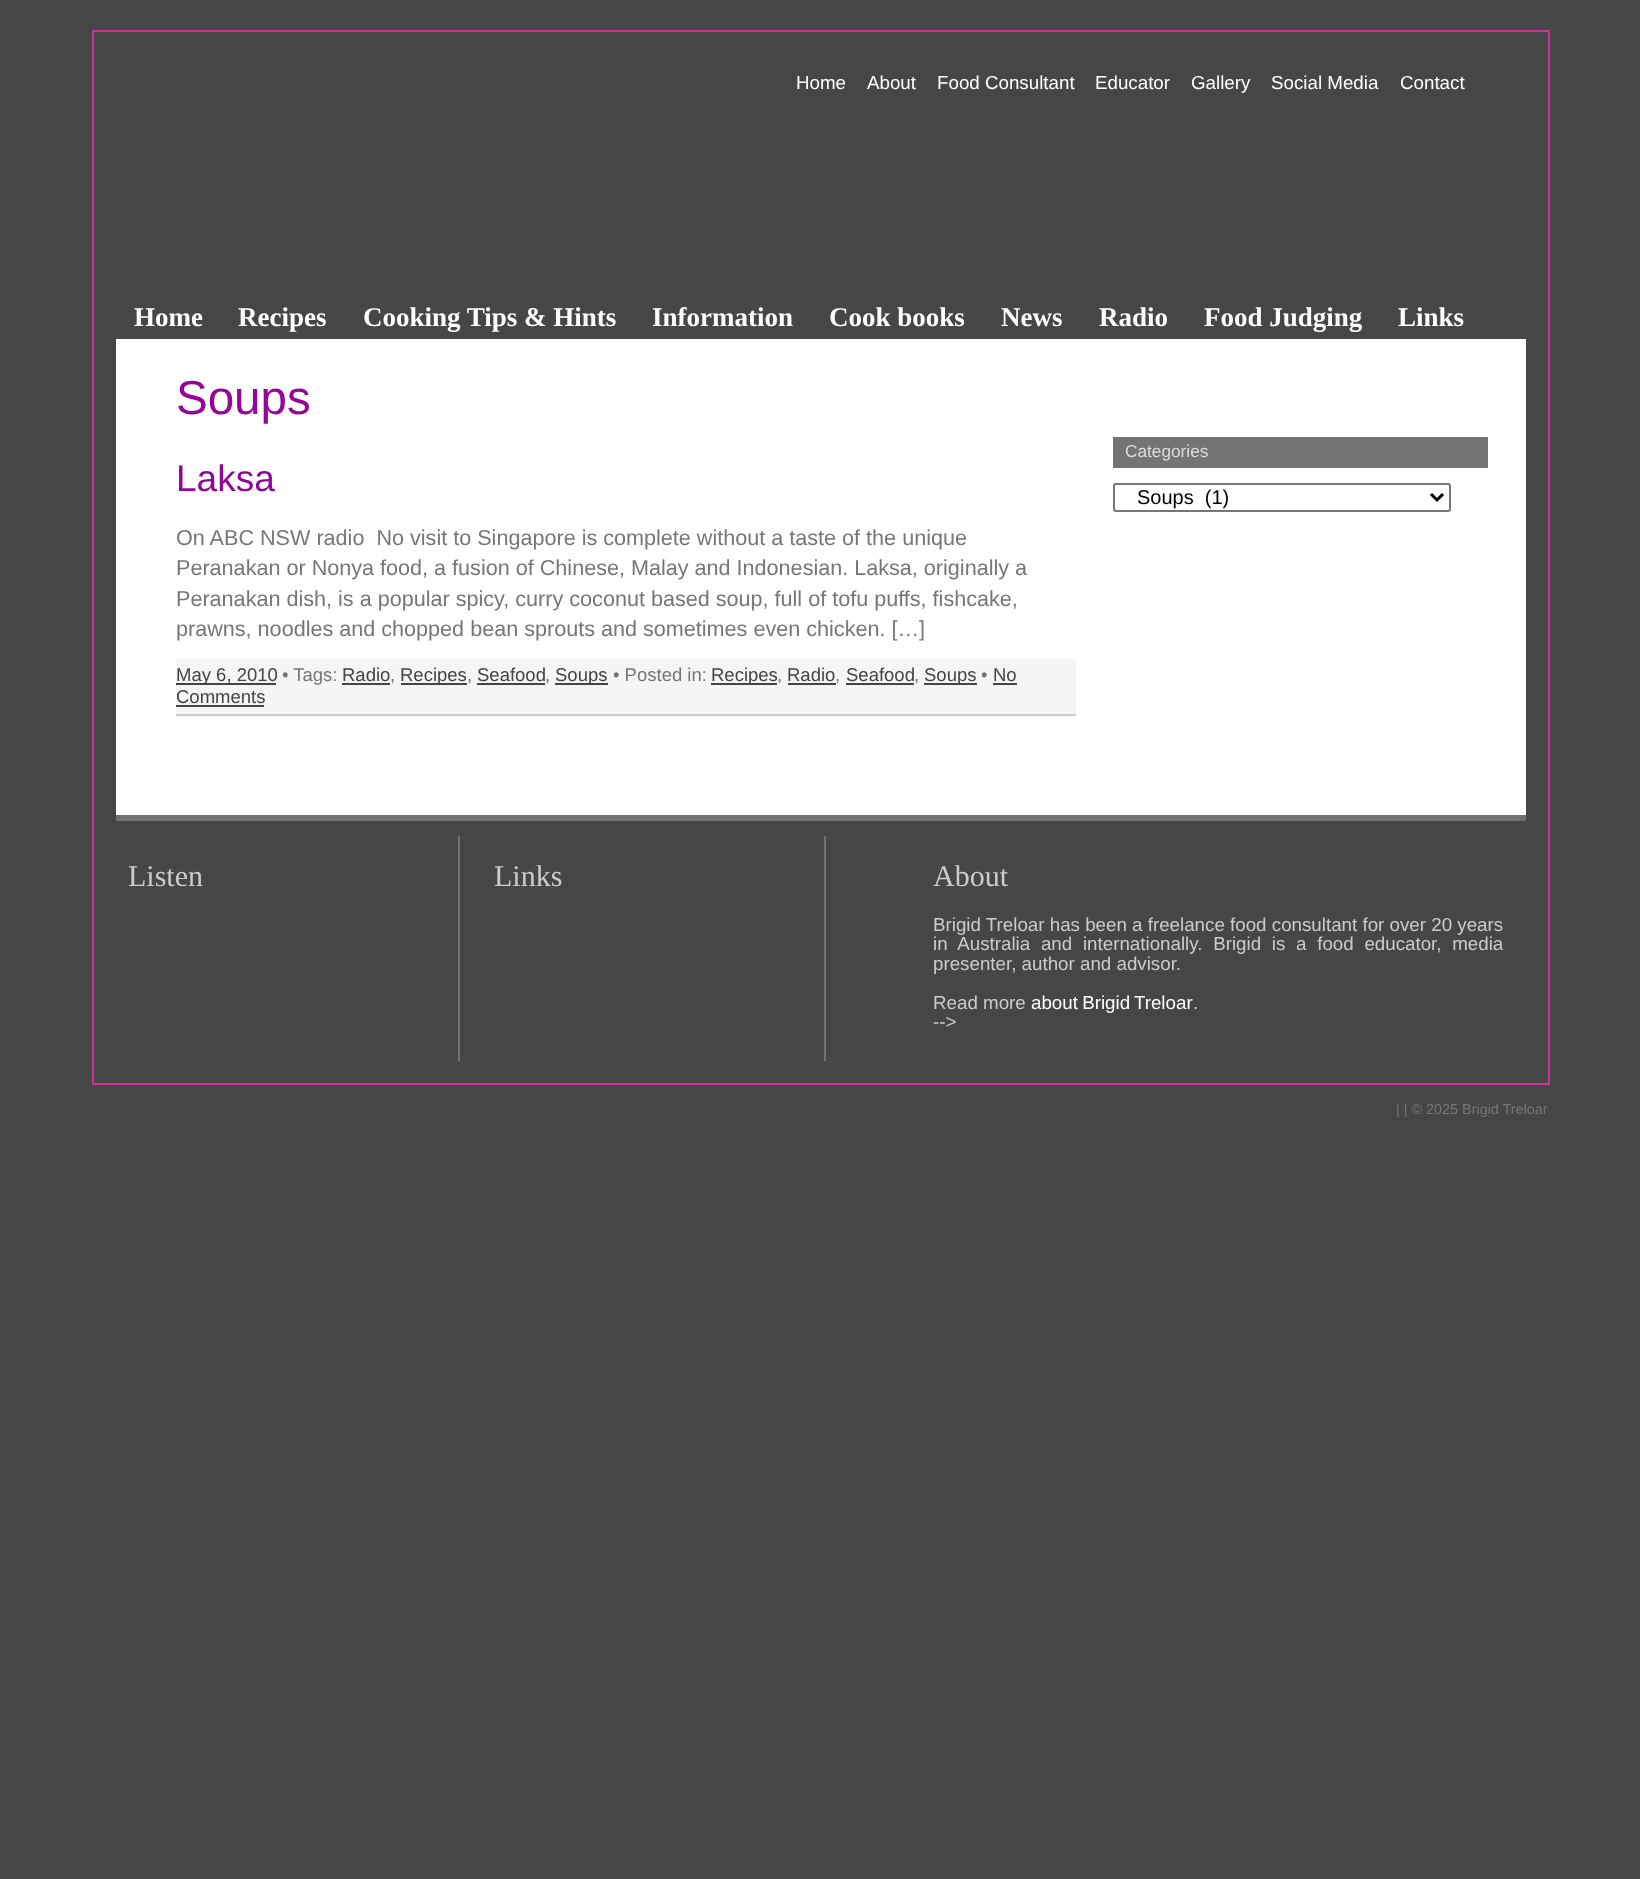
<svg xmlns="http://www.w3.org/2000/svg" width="1640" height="1879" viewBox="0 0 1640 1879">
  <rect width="100%" height="100%" fill="rgb(70,70,70)"/>
  <rect x="93" y="31" width="1456" height="1053" fill="none" stroke="rgb(204,51,153)" stroke-width="2"/>
  <g font-family="Liberation Sans" font-size="18.75" fill="rgb(255,255,255)">
    <text x="796" y="89">Home</text>
    <text x="867" y="89">About</text>
    <text x="937" y="89">Food Consultant</text>
    <text x="1095" y="89">Educator</text>
    <text x="1191" y="89">Gallery</text>
    <text x="1271" y="89">Social Media</text>
    <text x="1400" y="89">Contact</text>
  </g>
  <g font-family="Liberation Serif" font-size="27" font-weight="bold" fill="rgb(255,255,255)">
    <text x="134" y="326">Home</text>
    <text x="238" y="326">Recipes</text>
    <text x="363" y="326">Cooking Tips &amp; Hints</text>
    <text x="652" y="326">Information</text>
    <text x="829" y="326">Cook books</text>
    <text x="1001" y="326">News</text>
    <text x="1099" y="326">Radio</text>
    <text x="1204" y="326">Food Judging</text>
    <text x="1398" y="326">Links</text>
  </g>
  <rect x="116" y="339" width="1410" height="476" fill="rgb(255,255,255)"/>
  <text x="176" y="414" font-family="Liberation Sans" font-size="47.5" fill="rgb(148,6,154)">Soups</text>
  <text x="176" y="491" font-family="Liberation Sans" font-size="37" fill="rgb(148,6,154)">Laksa</text>
  <g font-family="Liberation Sans" font-size="21.6" fill="rgb(118,118,118)">
    <text xml:space="preserve"><tspan x="176" y="545">On ABC NSW radio  No visit to Singapore is complete without a taste of the unique</tspan><tspan x="176" y="575">Peranakan or Nonya food, a fusion of Chinese, Malay and Indonesian. Laksa, originally a</tspan><tspan x="176" y="606">Peranakan dish, is a popular spicy, curry coconut based soup, full of tofu puffs, fishcake,</tspan><tspan x="176" y="636">prawns, noodles and chopped bean sprouts and sometimes even chicken. […]</tspan></text>
  </g>
  <rect x="176" y="659" width="900" height="55" fill="rgb(245,245,245)"/>
  <rect x="176" y="714" width="900" height="2" fill="rgb(204,204,204)"/>
  <rect x="176" y="683" width="100" height="2" fill="rgb(68,68,68)"/>
  <text x="176" y="681" font-family="Liberation Sans" font-size="18.5" fill="rgb(68,68,68)">May 6, 2010</text>
  <text x="282" y="681" font-family="Liberation Sans" font-size="18.5" fill="rgb(118,118,118)">• Tags:</text>
  <text x="342" y="681" font-family="Liberation Sans" font-size="18.5" fill="rgb(68,68,68)">Radio</text>
  <rect x="342" y="683" width="48" height="2" fill="rgb(68,68,68)"/>
  <rect x="401" y="683" width="66" height="2" fill="rgb(68,68,68)"/>
  <g font-family="Liberation Sans" font-size="18.5" fill="rgb(68,68,68)">
    <text x="400" y="681">Recipes</text>
    <text x="477" y="681">Seafood</text>
  </g>
  <rect x="477" y="683" width="68" height="2" fill="rgb(68,68,68)"/>
  <rect x="555" y="683" width="53" height="2" fill="rgb(68,68,68)"/>
  <text x="555" y="681" font-family="Liberation Sans" font-size="18.5" fill="rgb(68,68,68)">Soups</text>
  <text x="613" y="681" font-family="Liberation Sans" font-size="18.5" fill="rgb(118,118,118)">• Posted in:</text>
  <rect x="711" y="683" width="66" height="2" fill="rgb(68,68,68)"/>
  <g font-family="Liberation Sans" font-size="18.5" fill="rgb(68,68,68)">
    <text x="711" y="681">Recipes</text>
    <text x="787" y="681">Radio</text>
  </g>
  <rect x="788" y="683" width="48" height="2" fill="rgb(68,68,68)"/>
  <text x="846" y="681" font-family="Liberation Sans" font-size="18.5" fill="rgb(68,68,68)">Seafood</text>
  <rect x="846" y="683" width="68" height="2" fill="rgb(68,68,68)"/>
  <rect x="924" y="683" width="53" height="2" fill="rgb(68,68,68)"/>
  <text x="924" y="681" font-family="Liberation Sans" font-size="18.5" fill="rgb(68,68,68)">Soups</text>
  <text x="981" y="681" font-family="Liberation Sans" font-size="18.5" fill="rgb(118,118,118)">•</text>
  <text x="993" y="681" font-family="Liberation Sans" font-size="18.5" fill="rgb(68,68,68)">No</text>
  <rect x="993" y="683" width="24" height="2" fill="rgb(68,68,68)"/>
  <g font-family="Liberation Sans" font-size="18.5" fill="rgb(118,118,118)">
    <text x="390" y="681">,</text>
    <text x="467" y="681">,</text>
    <text x="545" y="681">,</text>
    <text x="777" y="681">,</text>
    <text x="835" y="681">,</text>
    <text x="914" y="681">,</text>
  </g>
  <text x="176" y="703" font-family="Liberation Sans" font-size="18.5" fill="rgb(68,68,68)">Comments</text>
  <rect x="176" y="705" width="88" height="2" fill="rgb(68,68,68)"/>
  <rect x="1113" y="437" width="375" height="31" fill="rgb(116,116,116)"/>
  <text x="1125" y="457" font-family="Liberation Sans" font-size="17.25" fill="rgb(221,221,221)">Categories</text>
  <rect x="1114" y="484" width="336" height="27" rx="2" fill="none" stroke="rgb(118,118,118)" stroke-width="2"/>
  <path d="M1431 494L1437 500L1443 494" fill="none" stroke="rgb(0,0,0)" stroke-width="3"/>
  <text x="1137" y="504" font-family="Liberation Sans" font-size="20" fill="rgb(0,0,0)" xml:space="preserve">Soups  (1)</text>
  <rect x="116" y="815" width="1410" height="6" fill="rgb(114,114,114)"/>
  <rect x="458" y="836" width="2" height="225" fill="rgb(114,114,114)"/>
  <text x="128" y="886" font-family="Liberation Serif" font-size="30" fill="rgb(204,204,204)">Listen</text>
  <rect x="824" y="836" width="2" height="225" fill="rgb(114,114,114)"/>
  <g font-family="Liberation Serif" font-size="30" fill="rgb(204,204,204)">
    <text x="494" y="886">Links</text>
    <text x="933" y="886">About</text>
  </g>
  <g font-family="Liberation Sans" font-size="18.75" fill="rgb(204,204,204)">
    <text>
      <tspan x="933" y="931">Brigid Treloar has been a freelance food consultant for over 20 years</tspan>
      <tspan x="933" y="950" word-spacing="5.5">in Australia and internationally. Brigid is a food educator, media</tspan>
      <tspan x="933" y="970">presenter, author and advisor.</tspan>
    </text>
    <text x="933" y="1009">Read more</text>
  </g>
  <text x="1031" y="1009" word-spacing="-1" font-family="Liberation Sans" font-size="18.75" fill="rgb(255,255,255)">about Brigid Treloar</text>
  <g font-family="Liberation Sans" font-size="18.75" fill="rgb(204,204,204)">
    <text x="1193" y="1009">.</text>
    <text x="933" y="1028">--&gt;</text>
  </g>
  <text x="1396" y="1114" font-family="Liberation Sans" font-size="14.4" fill="rgb(118,118,118)">| | © 2025 Brigid Treloar</text>
</svg>
